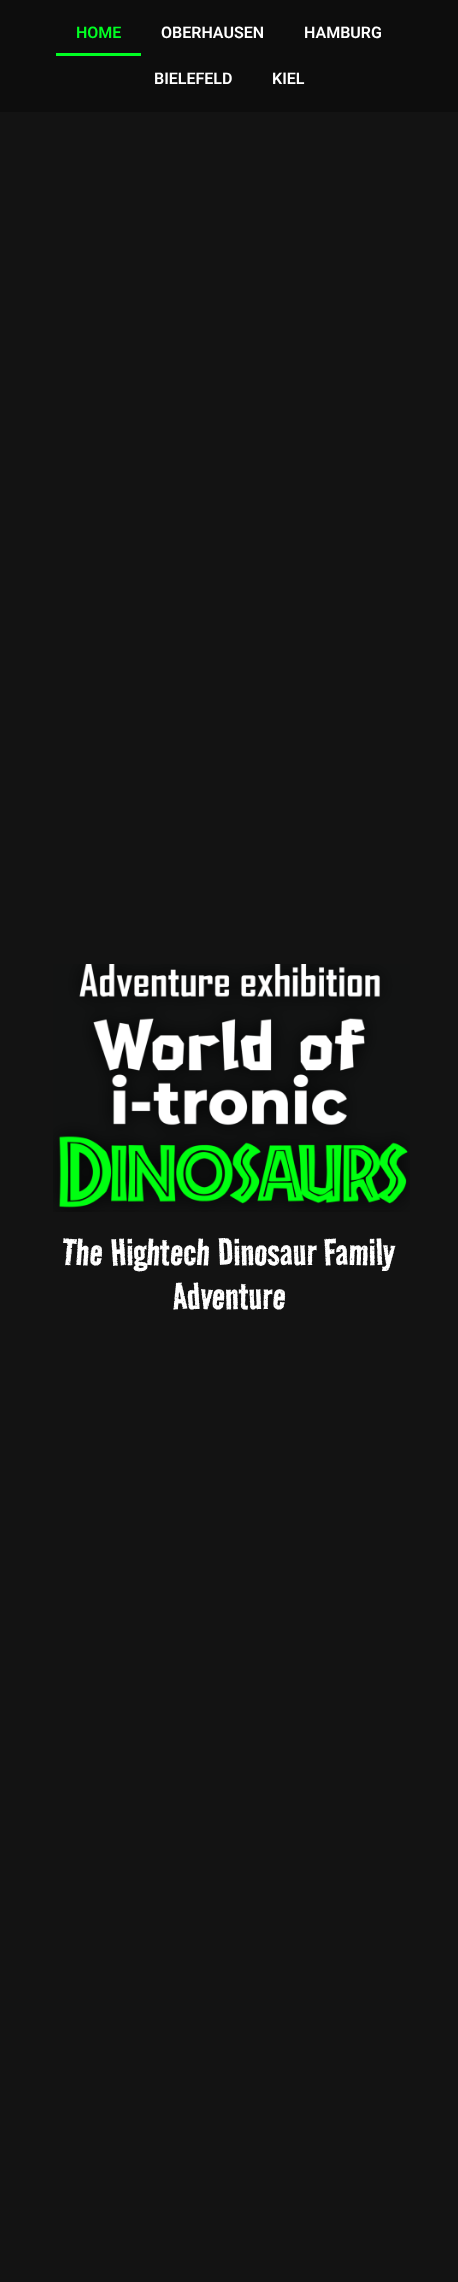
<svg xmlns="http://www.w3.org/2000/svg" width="458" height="2282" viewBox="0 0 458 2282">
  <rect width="100%" height="100%" fill="rgb(19,19,19)"/>
  <rect x="0" y="0" width="458" height="112" fill="rgb(13,13,13)"/>
  <text x="76" y="38" font-family="Roboto" font-size="16" font-weight="600" fill="rgb(0,255,35)">HOME</text>
  <rect x="56" y="53" width="85" height="3" fill="rgb(0,255,35)"/>
  <g font-family="Roboto" font-size="16" font-weight="600" fill="rgb(255,255,255)">
    <text x="161" y="38">OBERHAUSEN</text>
    <text x="304" y="38">HAMBURG</text>
    <text x="154" y="84">BIELEFELD</text>
    <text x="272" y="84">KIEL</text>
  </g>
  <image x="53" y="964" width="357" height="248" href="pic1.png"/>
  <g font-family="Road Rage" font-size="44" fill="rgb(255,255,255)">
    <text x="63" y="1265">The Hightech Dinosaur Family</text>
    <text x="173" y="1309">Adventure</text>
  </g>
</svg>
